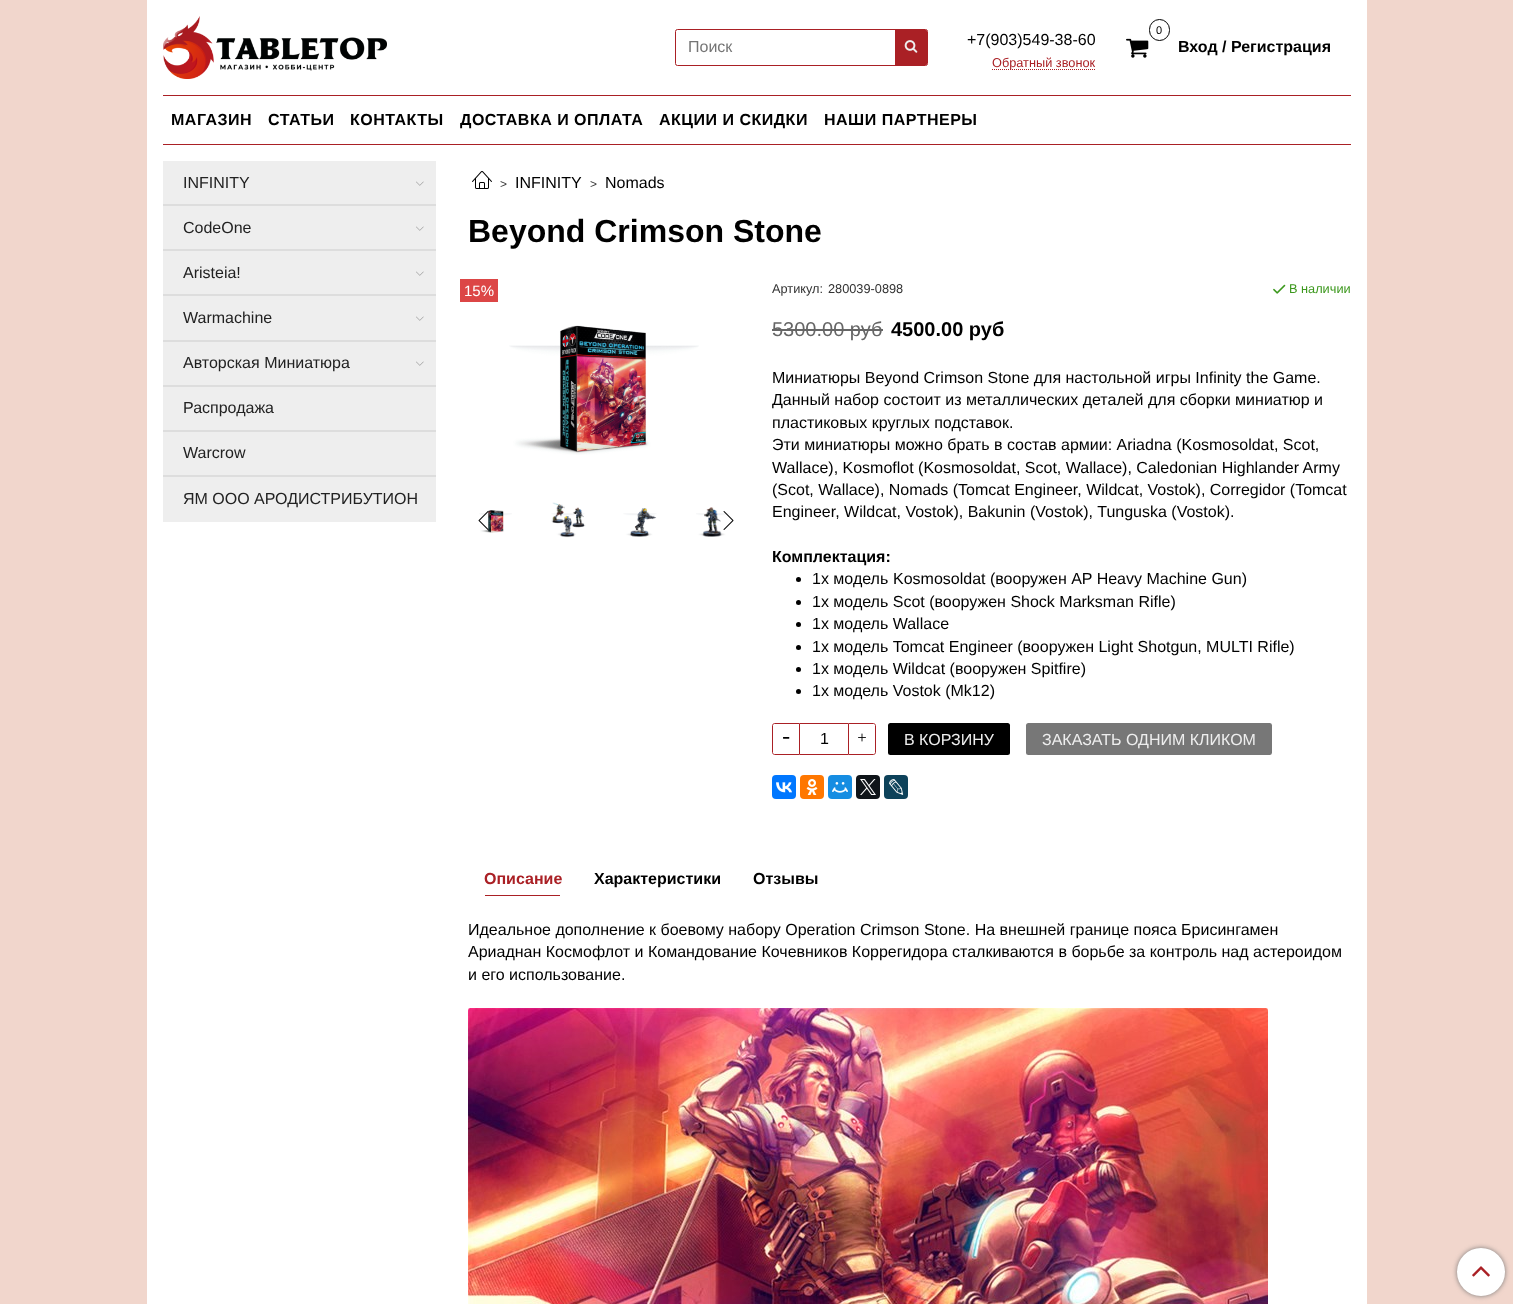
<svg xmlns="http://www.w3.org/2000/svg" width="1513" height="1304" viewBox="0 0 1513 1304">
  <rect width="100%" height="100%" fill="rgb(241,214,204)"/>
  <rect x="147" y="0" width="1220" height="1304" fill="rgb(255,255,255)"/>
  <image x="163" y="16" width="224" height="63" href="pic1.png"/>
  <rect x="1149.5" y="19.5" width="20" height="21" rx="10" fill="none" stroke="rgb(0,0,0)"/>
  <text x="1156" y="34" font-family="Liberation Sans" font-size="11" fill="rgb(0,0,0)">0</text>
  <image x="1126" y="38" width="23" height="20" href="pic2.png"/>
  <rect x="675.5" y="29.5" width="252" height="36" rx="2" fill="none" stroke="rgb(170,32,37)"/>
  <text x="688" y="52" font-family="Liberation Sans" font-size="16" fill="rgb(117,117,117)">Поиск</text>
  <path d="M895 30H925.5C926.5 30 927 30.5 927 31.5V63.5C927 64.5 926.5 65 925.5 65H895Z" fill="rgb(170,32,37)"/>
  <image x="904" y="40" width="14" height="13" href="pic3.png"/>
  <text x="967" y="45" font-family="Liberation Sans" font-size="16" fill="rgb(0,0,0)">+7(903)549-38-60</text>
  <path d="M992 69.5H1095" fill="none" stroke="rgb(170,32,37)" stroke-dasharray="1 1"/>
  <text x="992" y="67" font-family="Liberation Sans" font-size="12.75" fill="rgb(170,32,37)">Обратный звонок</text>
  <text x="1178" y="52" font-family="Liberation Sans" font-size="16" font-weight="bold" fill="rgb(0,0,0)">Вход / Регистрация</text>
  <rect x="163" y="95" width="1188" height="1" fill="rgb(170,32,37)"/>
  <rect x="163" y="144" width="1188" height="1" fill="rgb(170,32,37)"/>
  <g font-family="Liberation Sans" font-size="16" font-weight="bold" letter-spacing="0.5" fill="rgb(0,0,0)">
    <text x="171" y="125">МАГАЗИН</text>
    <text x="268" y="125">СТАТЬИ</text>
    <text x="350" y="125">КОНТАКТЫ</text>
    <text x="460" y="125">ДОСТАВКА И ОПЛАТА</text>
    <text x="659" y="125">АКЦИИ И СКИДКИ</text>
    <text x="824" y="125">НАШИ ПАРТНЕРЫ</text>
  </g>
  <rect x="163" y="161" width="273" height="361" fill="rgb(238,238,238)"/>
  <rect x="163" y="204" width="273" height="2" fill="rgb(221,221,221)"/>
  <text x="183" y="188" font-family="Liberation Sans" font-size="16" fill="rgb(34,34,34)">INFINITY</text>
  <image x="416" y="181" width="8" height="5" href="pic4.png"/>
  <rect x="163" y="249" width="273" height="2" fill="rgb(221,221,221)"/>
  <text x="183" y="233" font-family="Liberation Sans" font-size="16" fill="rgb(34,34,34)">CodeOne</text>
  <image x="416" y="226" width="8" height="5" href="pic4.png"/>
  <rect x="163" y="294" width="273" height="2" fill="rgb(221,221,221)"/>
  <text x="183" y="278" font-family="Liberation Sans" font-size="16" fill="rgb(34,34,34)">Aristeia!</text>
  <image x="416" y="271" width="8" height="5" href="pic4.png"/>
  <rect x="163" y="340" width="273" height="2" fill="rgb(221,221,221)"/>
  <text x="183" y="323" font-family="Liberation Sans" font-size="16" fill="rgb(34,34,34)">Warmachine</text>
  <image x="416" y="316" width="8" height="5" href="pic4.png"/>
  <rect x="163" y="385" width="273" height="2" fill="rgb(221,221,221)"/>
  <text x="183" y="368" font-family="Liberation Sans" font-size="16" fill="rgb(34,34,34)">Авторская Миниатюра</text>
  <image x="416" y="361" width="8" height="5" href="pic4.png"/>
  <rect x="163" y="430" width="273" height="2" fill="rgb(221,221,221)"/>
  <text x="183" y="413" font-family="Liberation Sans" font-size="16" fill="rgb(34,34,34)">Распродажа</text>
  <rect x="163" y="475" width="273" height="2" fill="rgb(221,221,221)"/>
  <g font-family="Liberation Sans" font-size="16" fill="rgb(34,34,34)">
    <text x="183" y="458">Warcrow</text>
    <text x="183" y="504">ЯМ ООО АРОДИСТРИБУТИОН</text>
  </g>
  <image x="472" y="171" width="20" height="18" href="pic5.png"/>
  <text x="500" y="188" font-family="Liberation Sans" font-size="12" fill="rgb(51,51,51)">&gt;</text>
  <text x="515" y="188" font-family="Liberation Sans" font-size="16" fill="rgb(0,0,0)">INFINITY</text>
  <text x="590" y="188" font-family="Liberation Sans" font-size="12" fill="rgb(51,51,51)">&gt;</text>
  <text x="605" y="188" font-family="Liberation Sans" font-size="16" fill="rgb(0,0,0)">Nomads</text>
  <text x="468" y="242" font-family="Liberation Sans" font-size="32" font-weight="bold" fill="rgb(0,0,0)">Beyond Crimson Stone</text>
  <rect x="460" y="279" width="38" height="23" fill="rgb(220,70,70)"/>
  <text x="464" y="296" font-family="Liberation Sans" font-size="15" fill="rgb(255,255,255)">15%</text>
  <image x="509" y="325" width="190" height="130" href="pic6.png"/>
  <image x="479" y="510" width="33" height="23" href="pic7.png"/>
  <image x="551" y="502" width="35" height="36" href="pic8.png"/>
  <image x="623" y="508" width="34" height="29" href="pic9.png"/>
  <image x="696" y="507" width="33" height="30" href="pic10.png"/>
  <image x="478" y="511" width="11" height="19" href="pic11.png"/>
  <image x="723" y="511" width="11" height="19" href="pic12.png"/>
  <g font-family="Liberation Sans" font-size="12.75" fill="rgb(51,51,51)">
    <text x="772" y="293">Артикул:</text>
    <text x="828" y="293">280039-0898</text>
  </g>
  <image x="1273" y="284" width="13" height="10" href="pic13.png"/>
  <text x="1289" y="293" font-family="Liberation Sans" font-size="12.75" fill="rgb(60,152,29)">В наличии</text>
  <text x="772" y="336" font-family="Liberation Sans" font-size="20" fill="rgb(102,102,102)">5300.00 руб</text>
  <rect x="772" y="329" width="111" height="2" fill="rgb(102,102,102)"/>
  <text x="891" y="336" font-family="Liberation Sans" font-size="20" font-weight="bold" fill="rgb(0,0,0)">4500.00 руб</text>
  <g font-family="Liberation Sans" font-size="16" fill="rgb(0,0,0)">
    <text>
      <tspan x="772" y="383">Миниатюры Beyond Crimson Stone для настольной игры Infinity the Game.</tspan>
      <tspan x="772" y="405">Данный набор состоит из металлических деталей для сборки миниатюр и</tspan>
      <tspan x="772" y="428">пластиковых круглых подставок.</tspan>
      <tspan x="772" y="450">Эти миниатюры можно брать в состав армии: Ariadna (Kosmosoldat, Scot,</tspan>
      <tspan x="772" y="473">Wallace), Kosmoflot (Kosmosoldat, Scot, Wallace), Caledonian Highlander Army</tspan>
      <tspan x="772" y="495">(Scot, Wallace), Nomads (Tomcat Engineer, Wildcat, Vostok), Corregidor (Tomcat</tspan>
      <tspan x="772" y="517">Engineer, Wildcat, Vostok), Bakunin (Vostok), Tunguska (Vostok).</tspan>
    </text>
  </g>
  <text x="772" y="562" font-family="Liberation Sans" font-size="16" font-weight="bold" fill="rgb(0,0,0)">Комплектация:</text>
  <circle cx="798.5" cy="579.5" r="2.5" fill="rgb(0,0,0)"/>
  <g font-family="Liberation Sans" font-size="16" fill="rgb(0,0,0)">
    <text x="812" y="584">1x модель</text>
    <text x="893" y="584">Kosmosoldat (вооружен AP Heavy Machine Gun)</text>
  </g>
  <circle cx="798.5" cy="602.5" r="2.5" fill="rgb(0,0,0)"/>
  <text x="812" y="607" font-family="Liberation Sans" font-size="16" fill="rgb(0,0,0)">1x модель Scot (вооружен Shock Marksman Rifle)</text>
  <circle cx="798.5" cy="624.5" r="2.5" fill="rgb(0,0,0)"/>
  <text x="812" y="629" font-family="Liberation Sans" font-size="16" fill="rgb(0,0,0)">1x модель Wallace</text>
  <circle cx="798.5" cy="647.5" r="2.5" fill="rgb(0,0,0)"/>
  <text x="812" y="652" font-family="Liberation Sans" font-size="16" fill="rgb(0,0,0)">1х модель Tomcat Engineer (вооружен Light Shotgun, MULTI Rifle)</text>
  <circle cx="798.5" cy="669.5" r="2.5" fill="rgb(0,0,0)"/>
  <text x="812" y="674" font-family="Liberation Sans" font-size="16" fill="rgb(0,0,0)">1x модель Wildcat (вооружен Spitfire)</text>
  <circle cx="798.5" cy="691.5" r="2.5" fill="rgb(0,0,0)"/>
  <text x="812" y="696" font-family="Liberation Sans" font-size="16" fill="rgb(0,0,0)">1x модель Vostok (Mk12)</text>
  <path d="M774.5 723.5H799.5V754.5H774.5C773.5 754.5 772.5 753.5 772.5 752.5V725.5C772.5 724.5 773.5 723.5 774.5 723.5Z" fill="none" stroke="rgb(170,32,37)"/>
  <image x="783" y="737" width="7" height="2" href="pic14.png"/>
  <rect x="800" y="723" width="48" height="1" fill="rgb(170,32,37)"/>
  <rect x="800" y="754" width="48" height="1" fill="rgb(170,32,37)"/>
  <text x="820" y="744" font-family="Liberation Sans" font-size="16" fill="rgb(0,0,0)">1</text>
  <path d="M848.5 723.5H873.5C874.5 723.5 875.5 724.5 875.5 725.5V752.5C875.5 753.5 874.5 754.5 873.5 754.5H848.5Z" fill="none" stroke="rgb(170,32,37)"/>
  <image x="858" y="733" width="8" height="9" href="pic15.png"/>
  <rect x="888" y="723" width="122" height="32" rx="2.5" fill="rgb(0,0,0)"/>
  <text x="904" y="745" font-family="Liberation Sans" font-size="16" fill="rgb(238,238,238)">В КОРЗИНУ</text>
  <rect x="1026" y="723" width="246" height="32" rx="2.5" fill="rgb(119,119,119)"/>
  <text x="1042" y="745" font-family="Liberation Sans" font-size="16" fill="rgb(238,238,238)">ЗАКАЗАТЬ ОДНИМ КЛИКОМ</text>
  <rect x="772" y="775" width="24" height="24" rx="4" fill="rgb(0,119,255)"/>
  <image x="776" y="782" width="16" height="11" href="pic16.png"/>
  <rect x="800" y="775" width="24" height="24" rx="4" fill="rgb(255,119,0)"/>
  <image x="806" y="779" width="12" height="16" href="pic17.png"/>
  <rect x="828" y="775" width="24" height="24" rx="4" fill="rgb(22,141,226)"/>
  <image x="832" y="782" width="16" height="11" href="pic18.png"/>
  <rect x="856" y="775" width="24" height="24" rx="4" fill="rgb(15,20,25)"/>
  <image x="860" y="779" width="16" height="16" href="pic19.png"/>
  <rect x="884" y="775" width="24" height="24" rx="4" fill="rgb(13,66,90)"/>
  <image x="889" y="779" width="15" height="16" href="pic20.png"/>
  <text x="484" y="884" font-family="Liberation Sans" font-size="16" font-weight="bold" fill="rgb(170,32,37)">Описание</text>
  <rect x="485" y="895" width="75" height="1" fill="rgb(170,32,37)"/>
  <g font-family="Liberation Sans" font-size="16" font-weight="bold" fill="rgb(0,0,0)">
    <text x="594" y="884">Характеристики</text>
    <text x="753" y="884">Отзывы</text>
  </g>
  <g font-family="Liberation Sans" font-size="16" fill="rgb(0,0,0)">
    <text>
      <tspan x="468" y="935">Идеальное дополнение к боевому набору Operation Crimson Stone. На внешней границе пояса Брисингамен</tspan>
      <tspan x="468" y="957">Ариаднан Космофлот и Командование Кочевников Коррегидора сталкиваются в борьбе за контроль над астероидом</tspan>
      <tspan x="468" y="980">и его использование.</tspan>
    </text>
  </g>
  <image x="468" y="1008" width="800" height="296" href="pic21.png"/>
  <rect x="1457" y="1248" width="48" height="48" rx="24" fill="rgb(119,119,119)" filter="blur(2.5px)"/>
  <circle cx="1481" cy="1272" r="24" fill="rgb(255,255,255)"/>
  <image x="1472" y="1266" width="18" height="11" href="pic22.png"/>
</svg>
